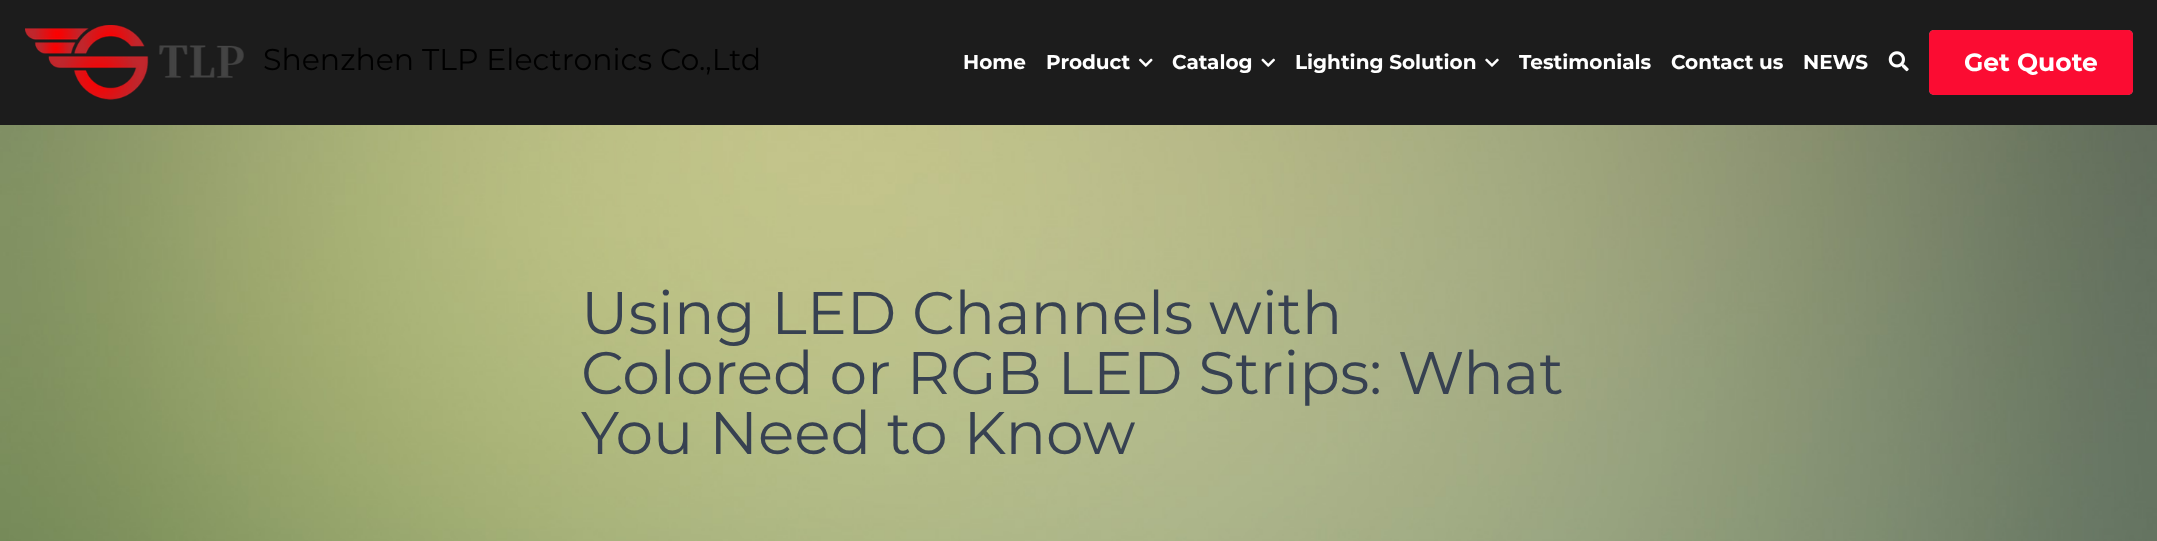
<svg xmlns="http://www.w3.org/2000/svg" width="2157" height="541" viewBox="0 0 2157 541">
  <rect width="100%" height="100%" fill="rgb(28,28,28)"/>
  <image x="25" y="25" width="219" height="75" href="pic1.png"/>
  <text x="263" y="70" font-family="Montserrat" font-size="30" fill="rgb(0,0,0)">Shenzhen TLP Electronics Co.,Ltd</text>
  <g font-family="Montserrat" font-size="20" font-weight="bold" fill="rgb(255,255,255)">
    <text x="963" y="69">Home</text>
    <text x="1046" y="69">Product</text>
  </g>
  <image x="1139" y="58" width="14" height="9" href="pic2.png"/>
  <text x="1172" y="69" font-family="Montserrat" font-size="20" font-weight="bold" fill="rgb(255,255,255)">Catalog</text>
  <image x="1261" y="58" width="14" height="9" href="pic3.png"/>
  <text x="1295" y="69" font-family="Montserrat" font-size="20" font-weight="bold" fill="rgb(255,255,255)">Lighting Solution</text>
  <image x="1485" y="58" width="14" height="9" href="pic4.png"/>
  <g font-family="Montserrat" font-size="20" font-weight="bold" fill="rgb(255,255,255)">
    <text x="1519" y="69">Testimonials</text>
    <text x="1671" y="69">Contact us</text>
    <text x="1803" y="69">NEWS</text>
  </g>
  <image x="1888" y="51" width="21" height="21" href="pic5.png"/>
  <rect x="1929" y="30" width="204" height="65" rx="5" fill="rgba(255,255,255,0.5)" filter="blur(0.5px)"/>
  <rect x="1929" y="30" width="204" height="65" rx="5" fill="rgb(251,12,50)"/>
  <text x="1964" y="71" font-family="Montserrat" font-size="25" font-weight="bold" fill="rgb(255,255,255)">Get Quote</text>
  <image x="0" y="125" width="2157" height="416" href="pic6.png"/>
  <g font-family="Montserrat" font-size="60" fill="rgb(55,65,81)">
    <text>
      <tspan x="581" y="334">Using LED Channels with</tspan>
      <tspan x="581" y="394">Colored or RGB LED Strips: What</tspan>
      <tspan x="581" y="454">You Need to Know</tspan>
    </text>
  </g>
</svg>
